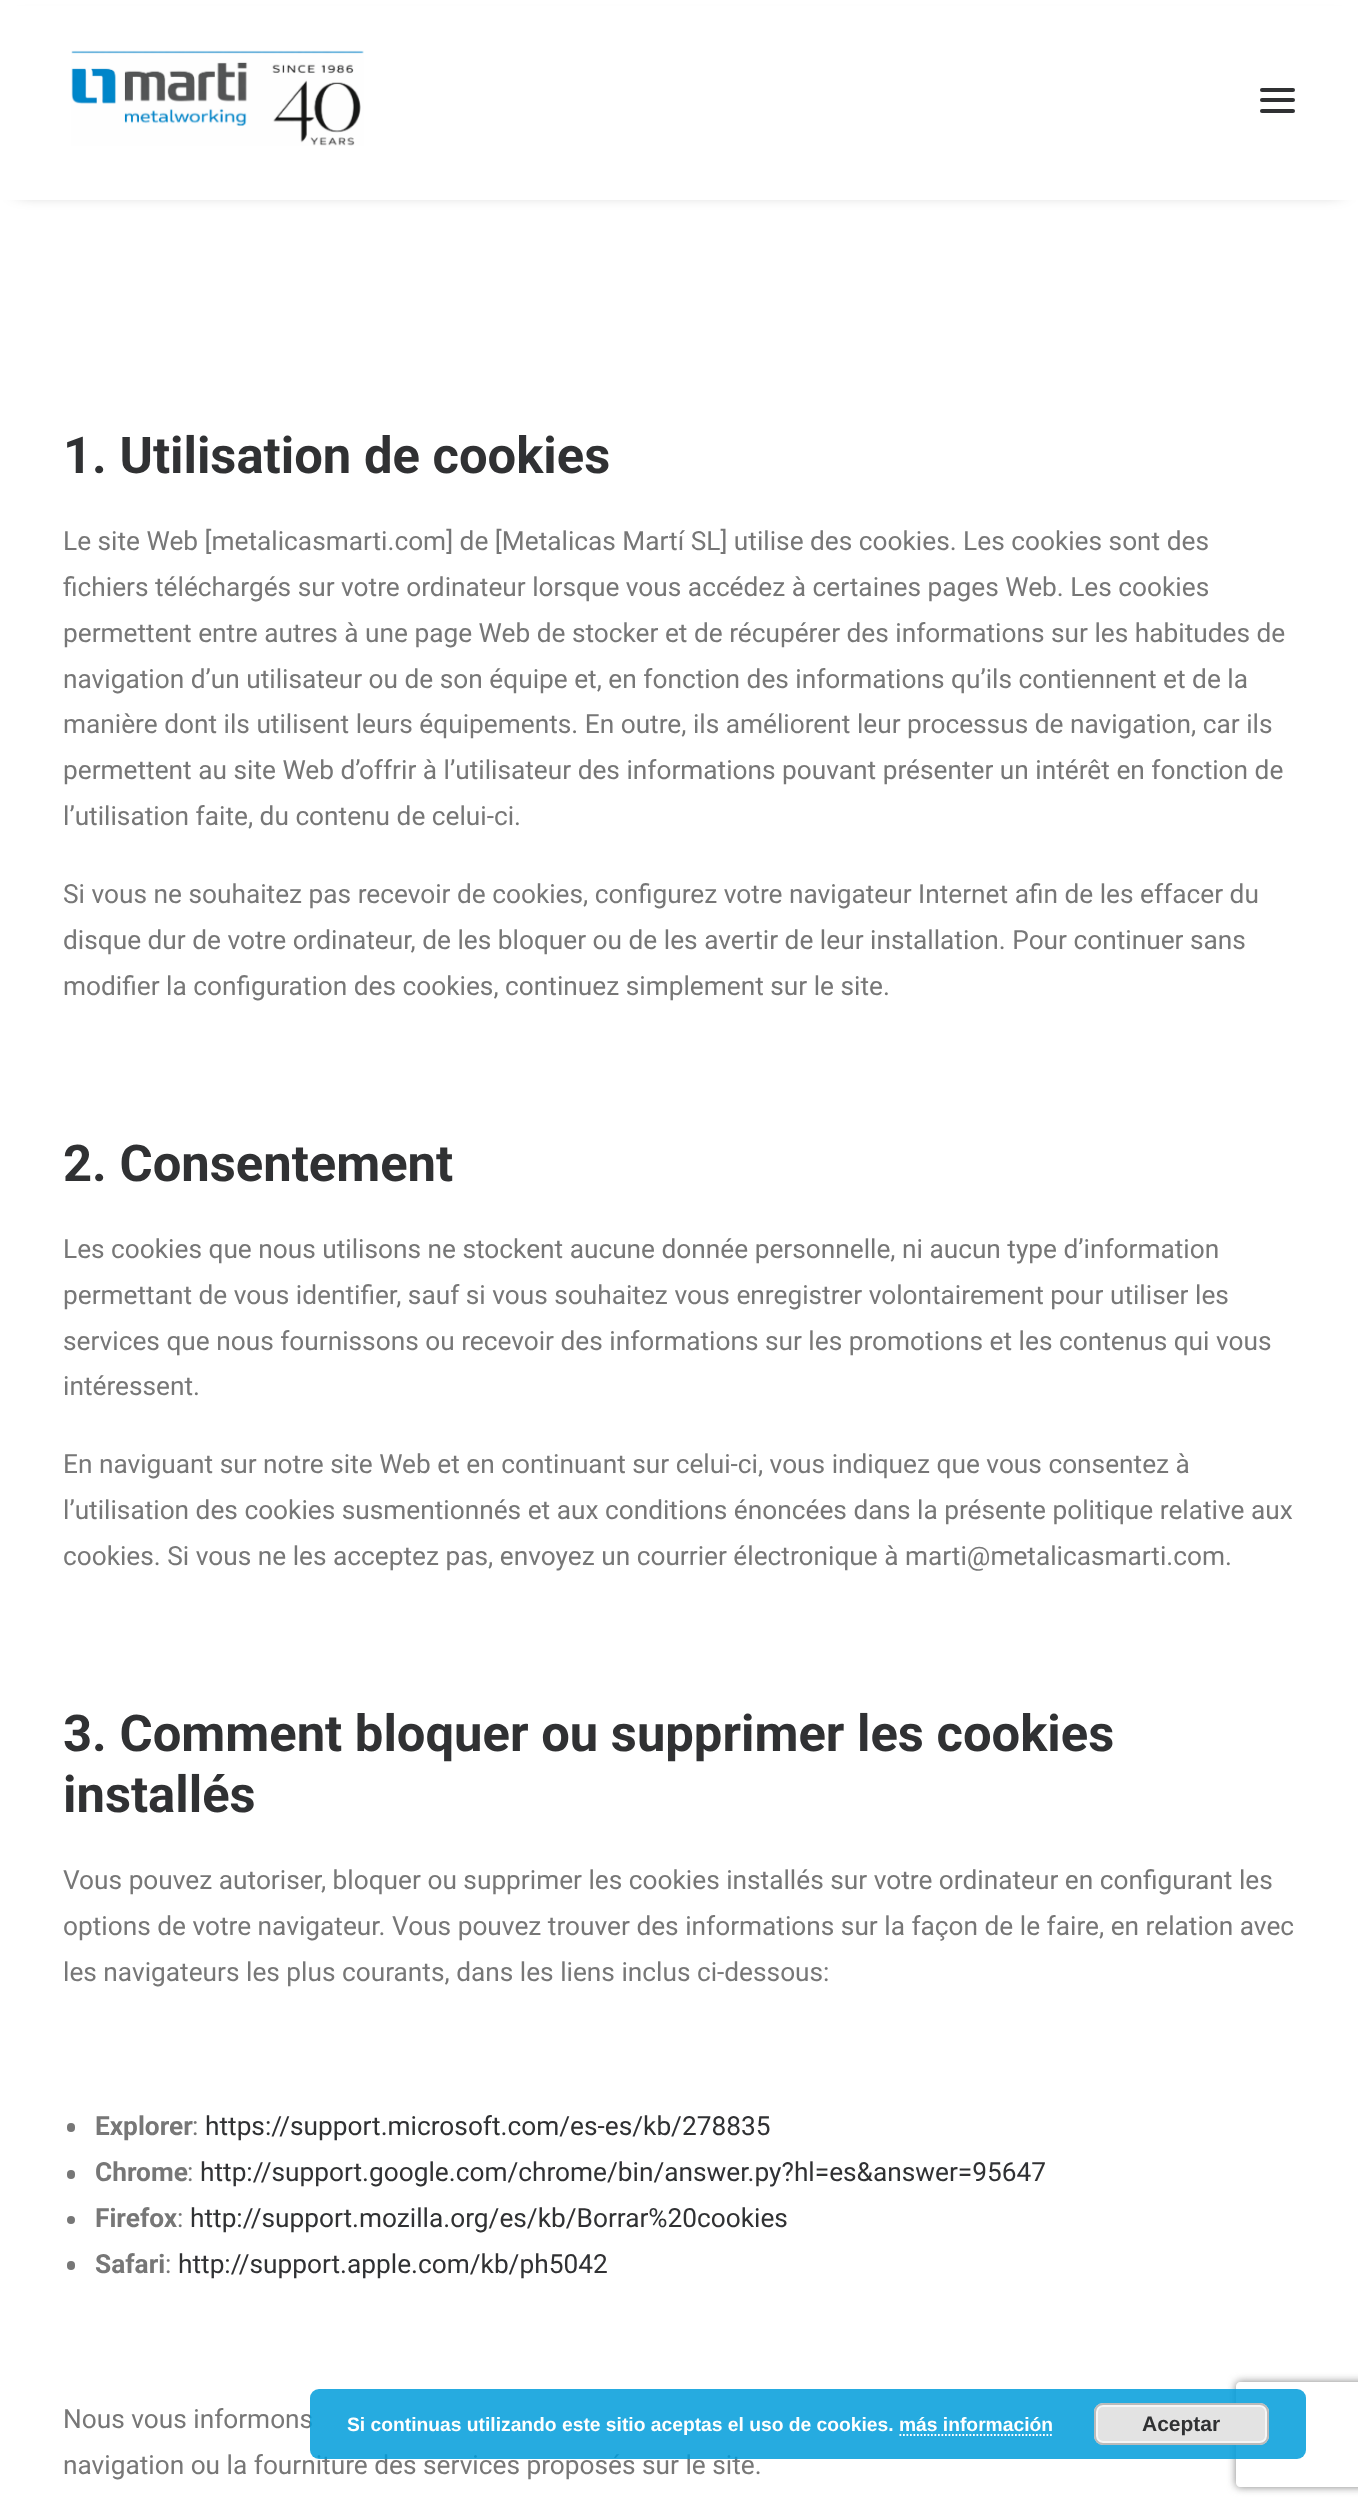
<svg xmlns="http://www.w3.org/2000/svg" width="1358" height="2511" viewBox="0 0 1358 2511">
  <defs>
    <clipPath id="clip1"><path d="M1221 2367H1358V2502H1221ZM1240 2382H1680C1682 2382 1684 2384 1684 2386V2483C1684 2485 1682 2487 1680 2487H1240C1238 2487 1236 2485 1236 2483V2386C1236 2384 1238 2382 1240 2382Z" clip-rule="evenodd"/></clipPath>
  </defs>
  <rect width="100%" height="100%" fill="rgb(255,255,255)"/>
  <rect x="18" y="25" width="1323" height="164" fill="rgba(0,0,0,0.6)" filter="blur(9px)"/>
  <rect x="0" y="6" width="1358" height="194" fill="rgb(255,255,255)"/>
  <image x="71" y="50" width="293" height="96" href="pic1.png"/>
  <rect x="1260" y="98" width="35" height="4" rx="2" fill="rgb(48,49,51)"/>
  <rect x="1260" y="88" width="35" height="4" rx="2" fill="rgb(48,49,51)"/>
  <rect x="1260" y="109" width="35" height="4" rx="2" fill="rgb(48,49,51)"/>
  <text x="63" y="473" font-family="Roboto" font-size="50.75" font-weight="bold" fill="rgb(48,49,51)">1. Utilisation de cookies</text>
  <g font-family="Roboto" font-size="26.25" fill="rgb(119,119,119)">
    <text>
      <tspan x="63" y="550">Le site Web [metalicasmarti.com] de [Metalicas Martí SL] utilise des cookies. Les cookies sont des</tspan>
      <tspan x="63" y="596">fichiers téléchargés sur votre ordinateur lorsque vous accédez à certaines pages Web. Les cookies</tspan>
      <tspan x="63" y="642">permettent entre autres à une page Web de stocker et de récupérer des informations sur les habitudes de</tspan>
      <tspan x="63" y="688">navigation d’un utilisateur ou de son équipe et, en fonction des informations qu’ils contiennent et de la</tspan>
      <tspan x="63" y="733">manière dont ils utilisent leurs équipements. En outre, ils améliorent leur processus de navigation, car ils</tspan>
      <tspan x="63" y="779">permettent au site Web d’offrir à l’utilisateur des informations pouvant présenter un intérêt en fonction de</tspan>
      <tspan x="63" y="825">l’utilisation faite, du contenu de celui-ci.</tspan>
    </text>
    <text>
      <tspan x="63" y="903">Si vous ne souhaitez pas recevoir de cookies, configurez votre navigateur Internet afin de les effacer du</tspan>
      <tspan x="63" y="949">disque dur de votre ordinateur, de les bloquer ou de les avertir de leur installation. Pour continuer sans</tspan>
      <tspan x="63" y="995">modifier la configuration des cookies, continuez simplement sur le site.</tspan>
    </text>
  </g>
  <text x="63" y="1181" font-family="Roboto" font-size="50.75" font-weight="bold" fill="rgb(48,49,51)">2. Consentement</text>
  <g font-family="Roboto" font-size="26.25" fill="rgb(119,119,119)">
    <text>
      <tspan x="63" y="1258">Les cookies que nous utilisons ne stockent aucune donnée personnelle, ni aucun type d’information</tspan>
      <tspan x="63" y="1304">permettant de vous identifier, sauf si vous souhaitez vous enregistrer volontairement pour utiliser les</tspan>
      <tspan x="63" y="1350">services que nous fournissons ou recevoir des informations sur les promotions et les contenus qui vous</tspan>
      <tspan x="63" y="1395">intéressent.</tspan>
    </text>
    <text>
      <tspan x="63" y="1473">En naviguant sur notre site Web et en continuant sur celui-ci, vous indiquez que vous consentez à</tspan>
      <tspan x="63" y="1519">l’utilisation des cookies susmentionnés et aux conditions énoncées dans la présente politique relative aux</tspan>
      <tspan x="63" y="1565">cookies. Si vous ne les acceptez pas, envoyez un courrier électronique à marti@metalicasmarti.com.</tspan>
    </text>
  </g>
  <g font-family="Roboto" font-size="50.75" font-weight="bold" fill="rgb(48,49,51)">
    <text>
      <tspan x="63" y="1751">3. Comment bloquer ou supprimer les cookies</tspan>
      <tspan x="63" y="1812">installés</tspan>
    </text>
  </g>
  <g font-family="Roboto" font-size="26.25" fill="rgb(119,119,119)">
    <text>
      <tspan x="63" y="1889">Vous pouvez autoriser, bloquer ou supprimer les cookies installés sur votre ordinateur en configurant les</tspan>
      <tspan x="63" y="1935">options de votre navigateur. Vous pouvez trouver des informations sur la façon de le faire, en relation avec</tspan>
      <tspan x="63" y="1981">les navigateurs les plus courants, dans les liens inclus ci-dessous:</tspan>
    </text>
  </g>
  <rect x="67" y="2123" width="8" height="9" rx="4" fill="rgb(119,119,119)"/>
  <text x="95" y="2135" font-family="Roboto" font-size="26.25" font-weight="bold" fill="rgb(119,119,119)">Explorer</text>
  <text x="192" y="2135" font-family="Roboto" font-size="26.25" fill="rgb(119,119,119)">:</text>
  <text x="205" y="2135" font-family="Roboto" font-size="26.25" fill="rgb(48,49,51)">https://support.microsoft.com/es-es/kb/278835</text>
  <rect x="67" y="2170" width="8" height="9" rx="4" fill="rgb(119,119,119)"/>
  <text x="95" y="2181" font-family="Roboto" font-size="26.25" font-weight="bold" fill="rgb(119,119,119)">Chrome</text>
  <text x="187" y="2181" font-family="Roboto" font-size="26.25" fill="rgb(119,119,119)">:</text>
  <text x="200" y="2181" font-family="Roboto" font-size="26.25" fill="rgb(48,49,51)">http://support.google.com/chrome/bin/answer.py?hl=es&amp;answer=95647</text>
  <circle cx="71" cy="2220" r="4" fill="rgb(119,119,119)"/>
  <text x="95" y="2227" font-family="Roboto" font-size="26.25" font-weight="bold" fill="rgb(119,119,119)">Firefox</text>
  <text x="177" y="2227" font-family="Roboto" font-size="26.25" fill="rgb(119,119,119)">:</text>
  <text x="190" y="2227" font-family="Roboto" font-size="26.25" fill="rgb(48,49,51)">http://support.mozilla.org/es/kb/Borrar%20cookies</text>
  <rect x="67" y="2261" width="8" height="9" rx="4" fill="rgb(119,119,119)"/>
  <text x="95" y="2273" font-family="Roboto" font-size="26.25" font-weight="bold" fill="rgb(119,119,119)">Safari</text>
  <text x="165" y="2273" font-family="Roboto" font-size="26.25" fill="rgb(119,119,119)">:</text>
  <text x="178" y="2273" font-family="Roboto" font-size="26.25" fill="rgb(48,49,51)">http://support.apple.com/kb/ph5042</text>
  <g font-family="Roboto" font-size="26.25" fill="rgb(119,119,119)">
    <text>
      <tspan x="63" y="2428">Nous vous informons</tspan>
      <tspan x="63" y="2474">navigation ou la fourniture des services proposés sur le site.</tspan>
    </text>
  </g>
  <g clip-path="url(#clip1)">
    <rect x="1236" y="2382" width="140" height="105" rx="4" fill="rgb(128,128,128)" filter="blur(4.5px)"/>
  </g>
  <rect x="310" y="2389" width="996" height="70" rx="9" fill="rgba(0,156,219,0.85)"/>
  <text x="347" y="2431" font-family="Liberation Sans" font-size="19.25" font-weight="bold" fill="rgb(255,255,255)">Si continuas utilizando este sitio aceptas el uso de cookies. más información</text>
  <rect x="1094" y="2403" width="175" height="42" rx="9" fill="rgb(227,227,227)"/>
  <rect x="1097" y="2406" width="169" height="36" rx="6" fill="none" stroke="rgb(246,246,246)" stroke-width="2"/>
  <rect x="1095" y="2404" width="173" height="40" rx="8" fill="none" stroke="rgb(187,187,187)" stroke-width="2"/>
  <text x="1142" y="2431" font-family="Liberation Sans" font-size="21" font-weight="bold" fill="rgb(48,49,51)">Aceptar</text>
  <path d="M899.5 2435H1053.5" fill="none" stroke="rgb(255,255,255)" stroke-width="1.8" stroke-dasharray="1.75 1.75"/>
</svg>
